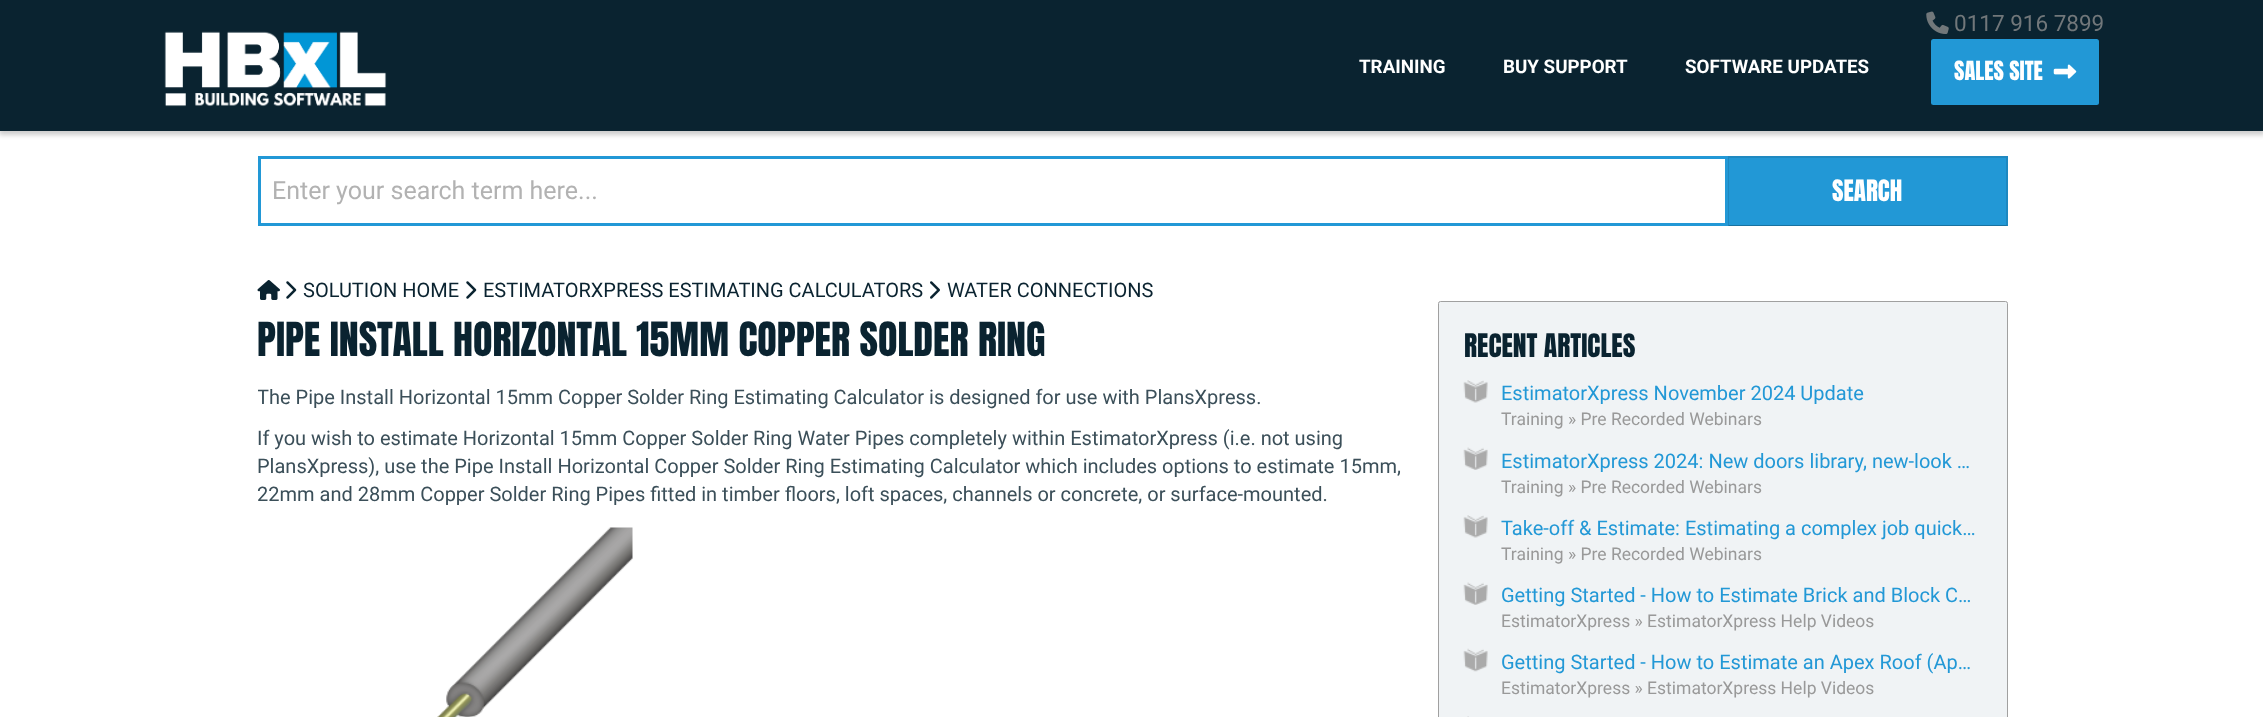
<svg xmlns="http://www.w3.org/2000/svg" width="2263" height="717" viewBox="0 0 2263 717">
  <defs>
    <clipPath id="clip1"><rect x="258" y="378" width="1158" height="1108"/></clipPath>
  </defs>
  <rect width="100%" height="100%" fill="rgb(255,255,255)"/>
  <rect x="-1" y="1" width="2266" height="134" fill="rgba(0,0,0,0.2)" filter="blur(2.5px)"/>
  <rect x="0" y="0" width="2263" height="131" fill="rgb(10,35,48)"/>
  <image x="164" y="31" width="223" height="76" href="pic1.png"/>
  <g font-family="Roboto" font-size="18.75" font-weight="bold" fill="rgb(255,255,255)">
    <text x="1359" y="73">TRAINING</text>
    <text x="1503" y="73">BUY SUPPORT</text>
    <text x="1685" y="73">SOFTWARE UPDATES</text>
  </g>
  <image x="1926" y="11" width="23" height="23" href="pic2.png"/>
  <text x="1954" y="31" font-family="Roboto" font-size="22.5" fill="rgb(113,119,122)">0117 916 7899</text>
  <rect x="1931" y="39" width="168" height="66" rx="2.5" fill="rgb(34,152,214)"/>
  <text x="1954" y="80" font-family="Anton" font-size="22.5" fill="rgb(255,255,255)">SALES SITE</text>
  <image x="2053" y="64" width="24" height="15" href="pic3.png"/>
  <rect x="259.5" y="157.5" width="1467" height="67" fill="none" stroke="rgb(34,152,214)" stroke-width="3"/>
  <text x="272" y="199" font-family="Roboto" font-size="25" fill="rgb(178,178,178)">Enter your search term here...</text>
  <rect x="1728" y="156" width="280" height="70" fill="rgb(34,152,214)"/>
  <path d="M1728 156H2008L2006 158H1729Z" fill="rgb(31,137,193)"/>
  <path d="M2008 156V226L2006 225V158Z" fill="rgba(0,0,0,0.1)"/>
  <path d="M2008 226H1728L1729 225H2006Z" fill="rgba(0,0,0,0.25)"/>
  <path d="M1728 226V156L1729 158V225Z" fill="rgba(0,0,0,0.1)"/>
  <text x="1832" y="201" font-family="Anton" font-size="25" fill="rgb(255,255,255)">SEARCH</text>
  <image x="257" y="280" width="23" height="20" href="pic4.png"/>
  <image x="286" y="281" width="11" height="18" href="pic5.png"/>
  <text x="303" y="297" font-family="Roboto" font-size="20" fill="rgb(10,35,48)">SOLUTION HOME</text>
  <image x="466" y="281" width="11" height="18" href="pic5.png"/>
  <text x="483" y="297" font-family="Roboto" font-size="20" fill="rgb(10,35,48)">ESTIMATORXPRESS ESTIMATING CALCULATORS</text>
  <image x="930" y="281" width="10" height="18" href="pic6.png"/>
  <text x="947" y="297" font-family="Roboto" font-size="20" fill="rgb(10,35,48)">WATER CONNECTIONS</text>
  <text x="257" y="356" font-family="Anton" font-size="40" fill="rgb(10,35,48)">PIPE INSTALL HORIZONTAL 15MM COPPER SOLDER RING</text>
  <g clip-path="url(#clip1)">
    <text x="257" y="404" font-family="Roboto" font-size="20" fill="rgb(59,79,89)">The Pipe Install Horizontal 15mm Copper Solder Ring Estimating Calculator is designed for use with PlansXpress.</text>
  </g>
  <g font-family="Roboto" font-size="20" fill="rgb(59,79,89)">
    <text>
      <tspan x="257" y="445">If you wish to estimate Horizontal 15mm Copper Solder Ring Water Pipes completely within EstimatorXpress (i.e. not using</tspan>
      <tspan x="257" y="473">PlansXpress), use the Pipe Install Horizontal Copper Solder Ring Estimating Calculator which includes options to estimate 15mm,</tspan>
      <tspan x="257" y="501">22mm and 28mm Copper Solder Ring Pipes fitted in timber floors, loft spaces, channels or concrete, or surface-mounted.</tspan>
    </text>
  </g>
  <image x="437" y="527" width="196" height="190" href="pic7.png"/>
  <rect x="1438.5" y="301.5" width="569" height="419" rx="2" fill="rgb(240,243,245)" stroke="rgb(160,160,160)"/>
  <text x="1464" y="357" font-family="Anton" font-size="27.5" fill="rgb(10,35,48)">RECENT ARTICLES</text>
  <image x="1463" y="380" width="25" height="23" href="pic8.png"/>
  <text x="1501" y="400" font-family="Roboto" font-size="20" fill="rgb(34,152,214)">EstimatorXpress November 2024 Update</text>
  <text x="1501" y="425" font-family="Roboto" font-size="17.5" fill="rgb(153,153,153)">Training » Pre Recorded Webinars</text>
  <image x="1463" y="447" width="25" height="23" href="pic9.png"/>
  <text x="1501" y="468" font-family="Roboto" font-size="20" fill="rgb(34,152,214)">EstimatorXpress 2024: New doors library, new-look …</text>
  <text x="1501" y="493" font-family="Roboto" font-size="17.5" fill="rgb(153,153,153)">Training » Pre Recorded Webinars</text>
  <image x="1463" y="515" width="25" height="23" href="pic8.png"/>
  <text x="1501" y="535" font-family="Roboto" font-size="20" fill="rgb(34,152,214)">Take-off &amp; Estimate: Estimating a complex job quick…</text>
  <text x="1501" y="560" font-family="Roboto" font-size="17.5" fill="rgb(153,153,153)">Training » Pre Recorded Webinars</text>
  <image x="1463" y="582" width="25" height="23" href="pic10.png"/>
  <text x="1501" y="602" font-family="Roboto" font-size="20" fill="rgb(34,152,214)">Getting Started - How to Estimate Brick and Block C…</text>
  <text x="1501" y="627" font-family="Roboto" font-size="17.5" fill="rgb(153,153,153)">EstimatorXpress » EstimatorXpress Help Videos</text>
  <image x="1463" y="648" width="25" height="24" href="pic11.png"/>
  <text x="1501" y="669" font-family="Roboto" font-size="20" fill="rgb(34,152,214)">Getting Started - How to Estimate an Apex Roof (Ap…</text>
  <text x="1501" y="694" font-family="Roboto" font-size="17.5" fill="rgb(153,153,153)">EstimatorXpress » EstimatorXpress Help Videos</text>
  <image x="1467" y="716" width="2" height="1" href="pic12.png"/>
</svg>
